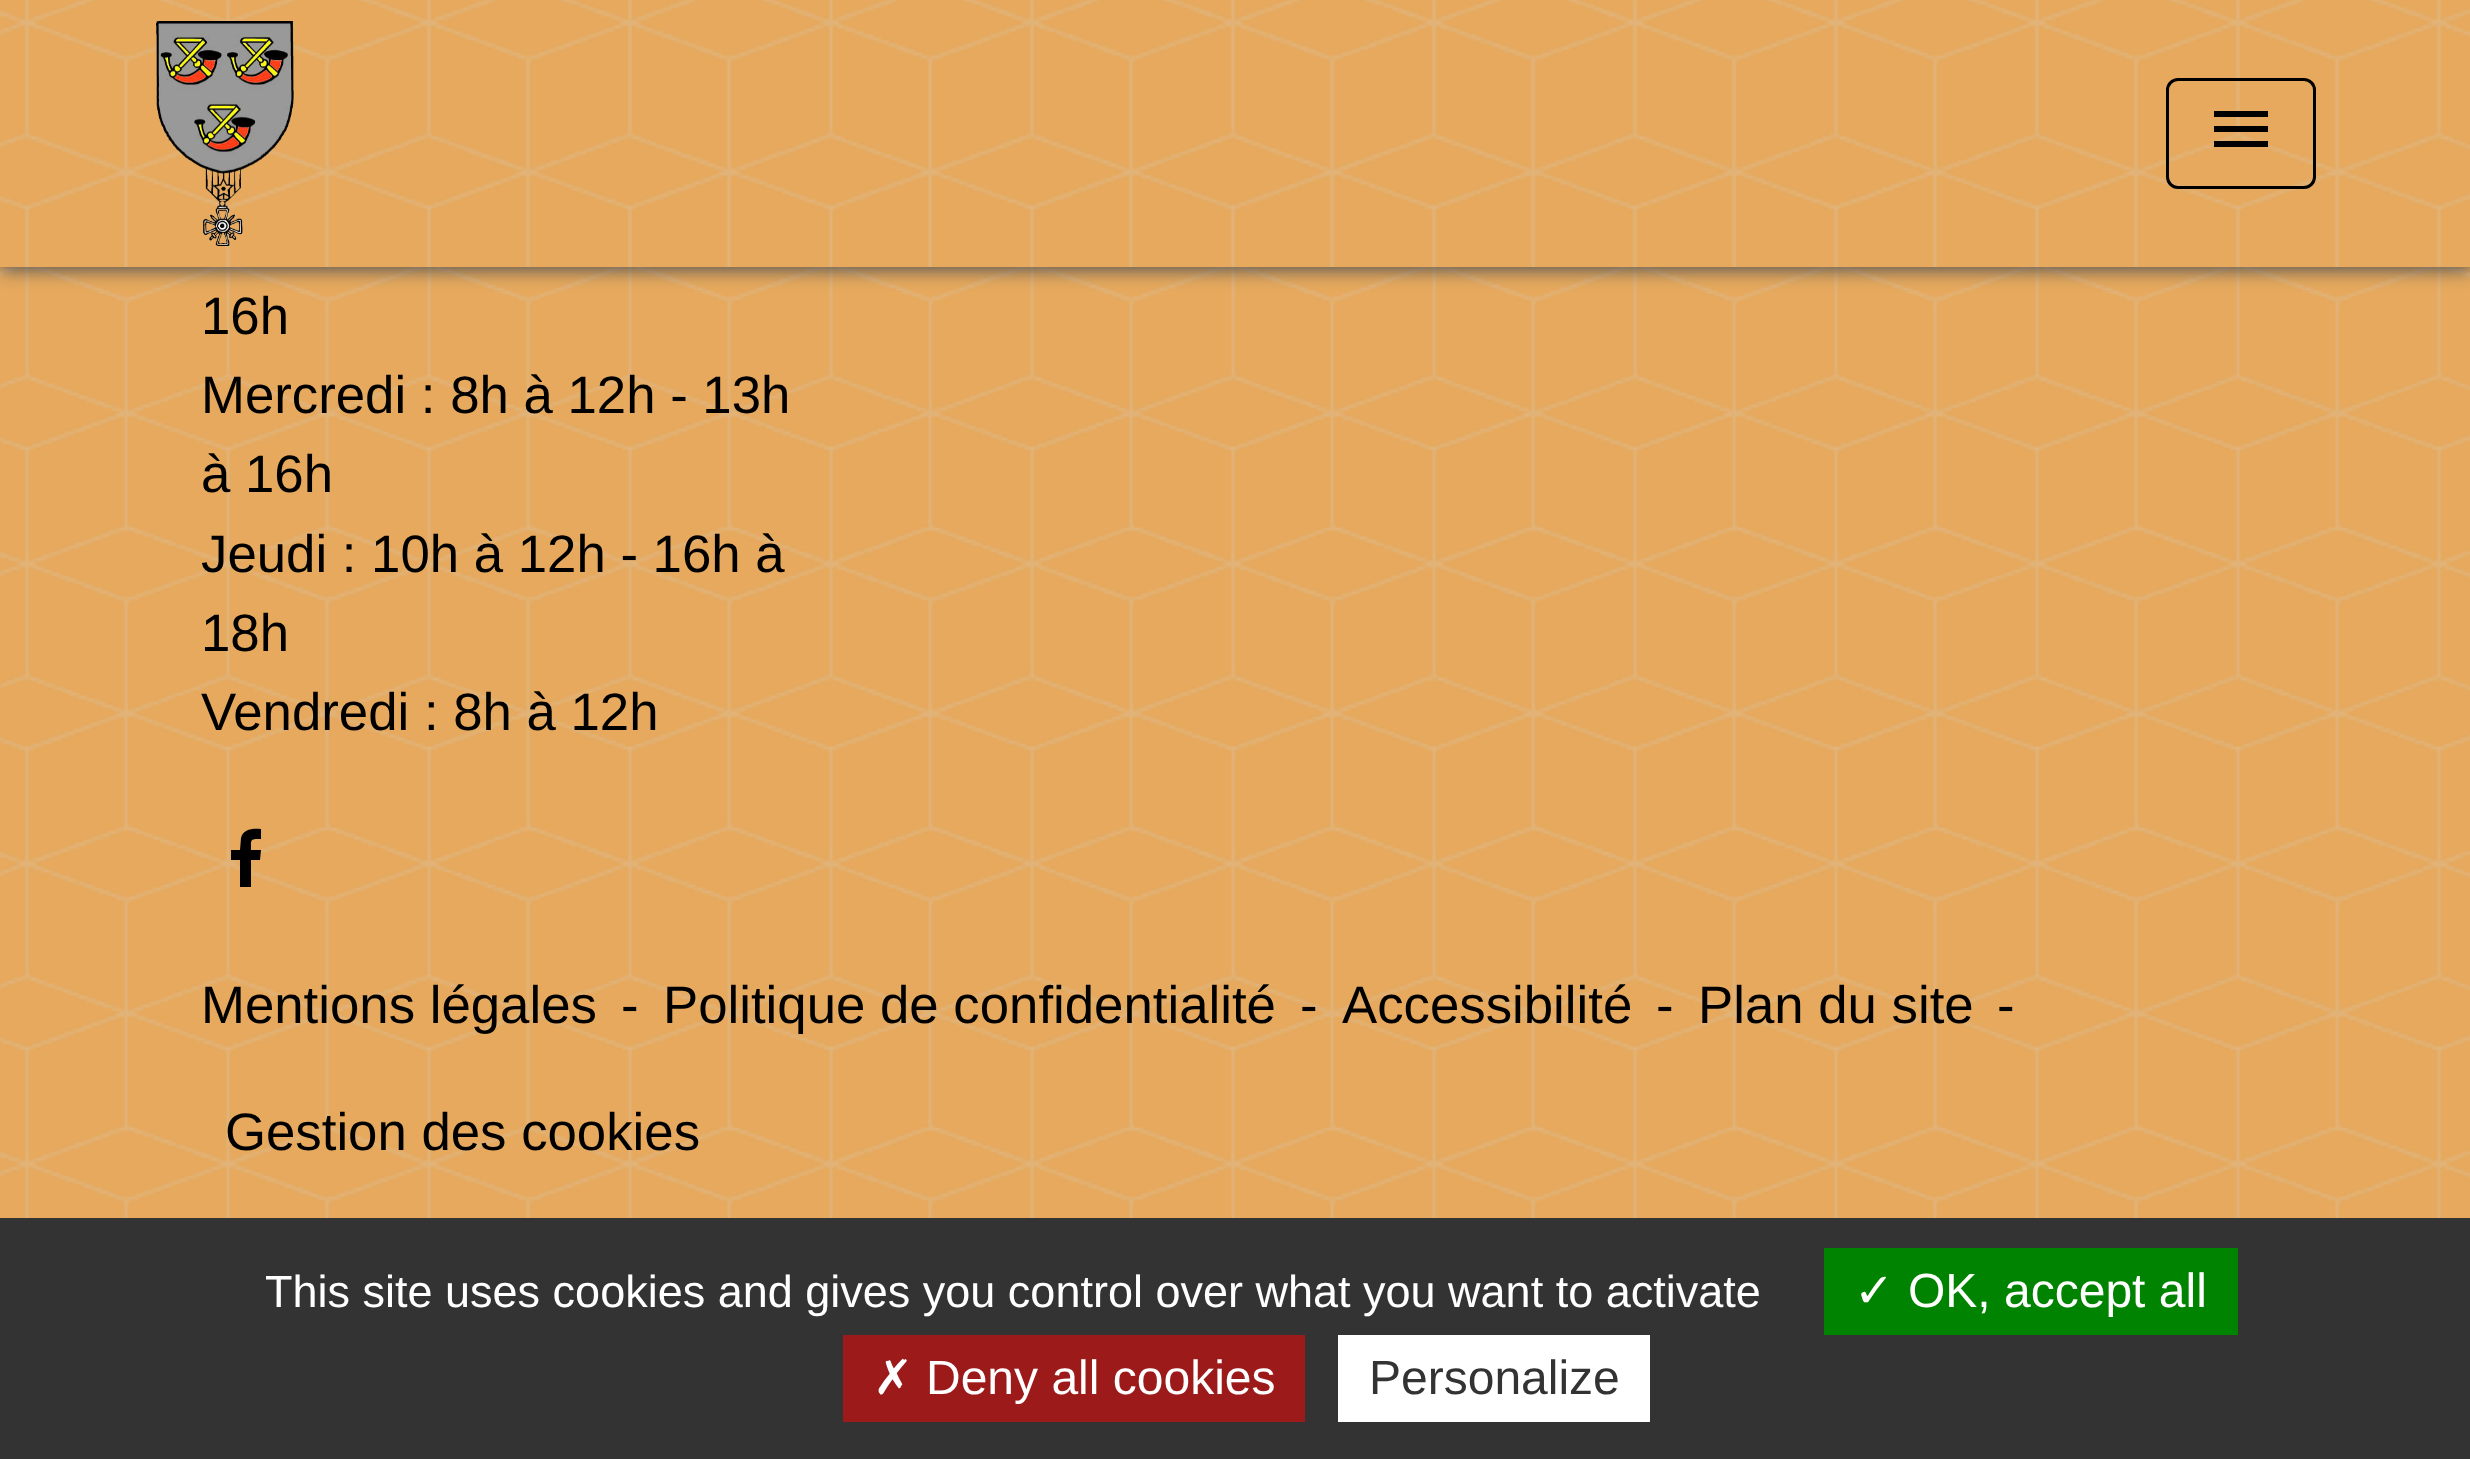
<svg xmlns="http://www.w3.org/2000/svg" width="2470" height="1459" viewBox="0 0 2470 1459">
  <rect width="100%" height="100%" fill="rgb(230,169,93)"/>
  <image x="0" y="267" width="2470" height="951" href="pic3.png"/>
  <rect x="0" y="3" width="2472" height="267" fill="rgb(83,83,83)" filter="blur(9px)"/>
  <rect x="0" y="0" width="2470" height="267" fill="rgb(230,169,93)"/>
  <image x="0" y="0" width="2470" height="267" href="pic1.png"/>
  <image x="156" y="21" width="138" height="225" href="pic2.png"/>
  <rect x="2167.5" y="79.5" width="147" height="108" rx="10.5" fill="none" stroke="rgb(0,0,0)" stroke-width="3"/>
  <path d="M2214 111H2268V117H2214ZM2214 132V126H2268V132ZM2214 147V141H2268V147Z" fill="rgb(0,0,0)"/>
  <g font-family="Liberation Sans" font-size="52.75" fill="rgb(0,0,0)">
    <text>
      <tspan x="201" y="334">16h</tspan>
      <tspan x="201" y="413">Mercredi : 8h à 12h - 13h</tspan>
      <tspan x="201" y="492">à 16h</tspan>
      <tspan x="201" y="572">Jeudi : 10h à 12h - 16h à</tspan>
      <tspan x="201" y="651">18h</tspan>
      <tspan x="201" y="730">Vendredi : 8h à 12h</tspan>
    </text>
  </g>
  <path d="M261 829V839C250 839 251 839 251 850H261L260 860H251V887H240V860H231V850H240L241 838C243 829 253 828 261 829Z" fill="rgb(0,0,0)"/>
  <g font-family="Liberation Sans" font-size="52.75" fill="rgb(0,0,0)">
    <text x="201" y="1023">Mentions légales</text>
    <text x="621" y="1023">-</text>
    <text x="663" y="1023">Politique de confidentialité</text>
    <text x="1300" y="1023">-</text>
    <text x="1342" y="1023">Accessibilité</text>
    <text x="1656" y="1023">-</text>
    <text x="1698" y="1023">Plan du site</text>
    <text x="1997" y="1023">-</text>
    <text x="225" y="1150">Gestion des cookies</text>
  </g>
  <rect x="0" y="1218" width="2470" height="241" fill="rgb(51,51,51)"/>
  <text x="265" y="1307" font-family="Liberation Sans" font-size="45" fill="rgb(255,255,255)">This site uses cookies and gives you control over what you want to activate</text>
  <rect x="1824" y="1248" width="414" height="87" fill="rgb(0,131,0)"/>
  <text x="1854" y="1307" font-family="DejaVu Sans" font-size="48" fill="rgb(255,255,255)">✓</text>
  <text x="1908" y="1307" font-family="Liberation Sans" font-size="48" fill="rgb(255,255,255)">OK, accept all</text>
  <rect x="843" y="1335" width="462" height="87" fill="rgb(156,26,26)"/>
  <text x="873" y="1394" font-family="DejaVu Sans" font-size="48" fill="rgb(255,255,255)">✗</text>
  <text x="926" y="1394" font-family="Liberation Sans" font-size="48" fill="rgb(255,255,255)">Deny all cookies</text>
  <rect x="1338" y="1335" width="312" height="87" fill="rgb(255,255,255)"/>
  <text x="1369" y="1394" font-family="Liberation Sans" font-size="48" fill="rgb(51,51,51)">Personalize</text>
</svg>
